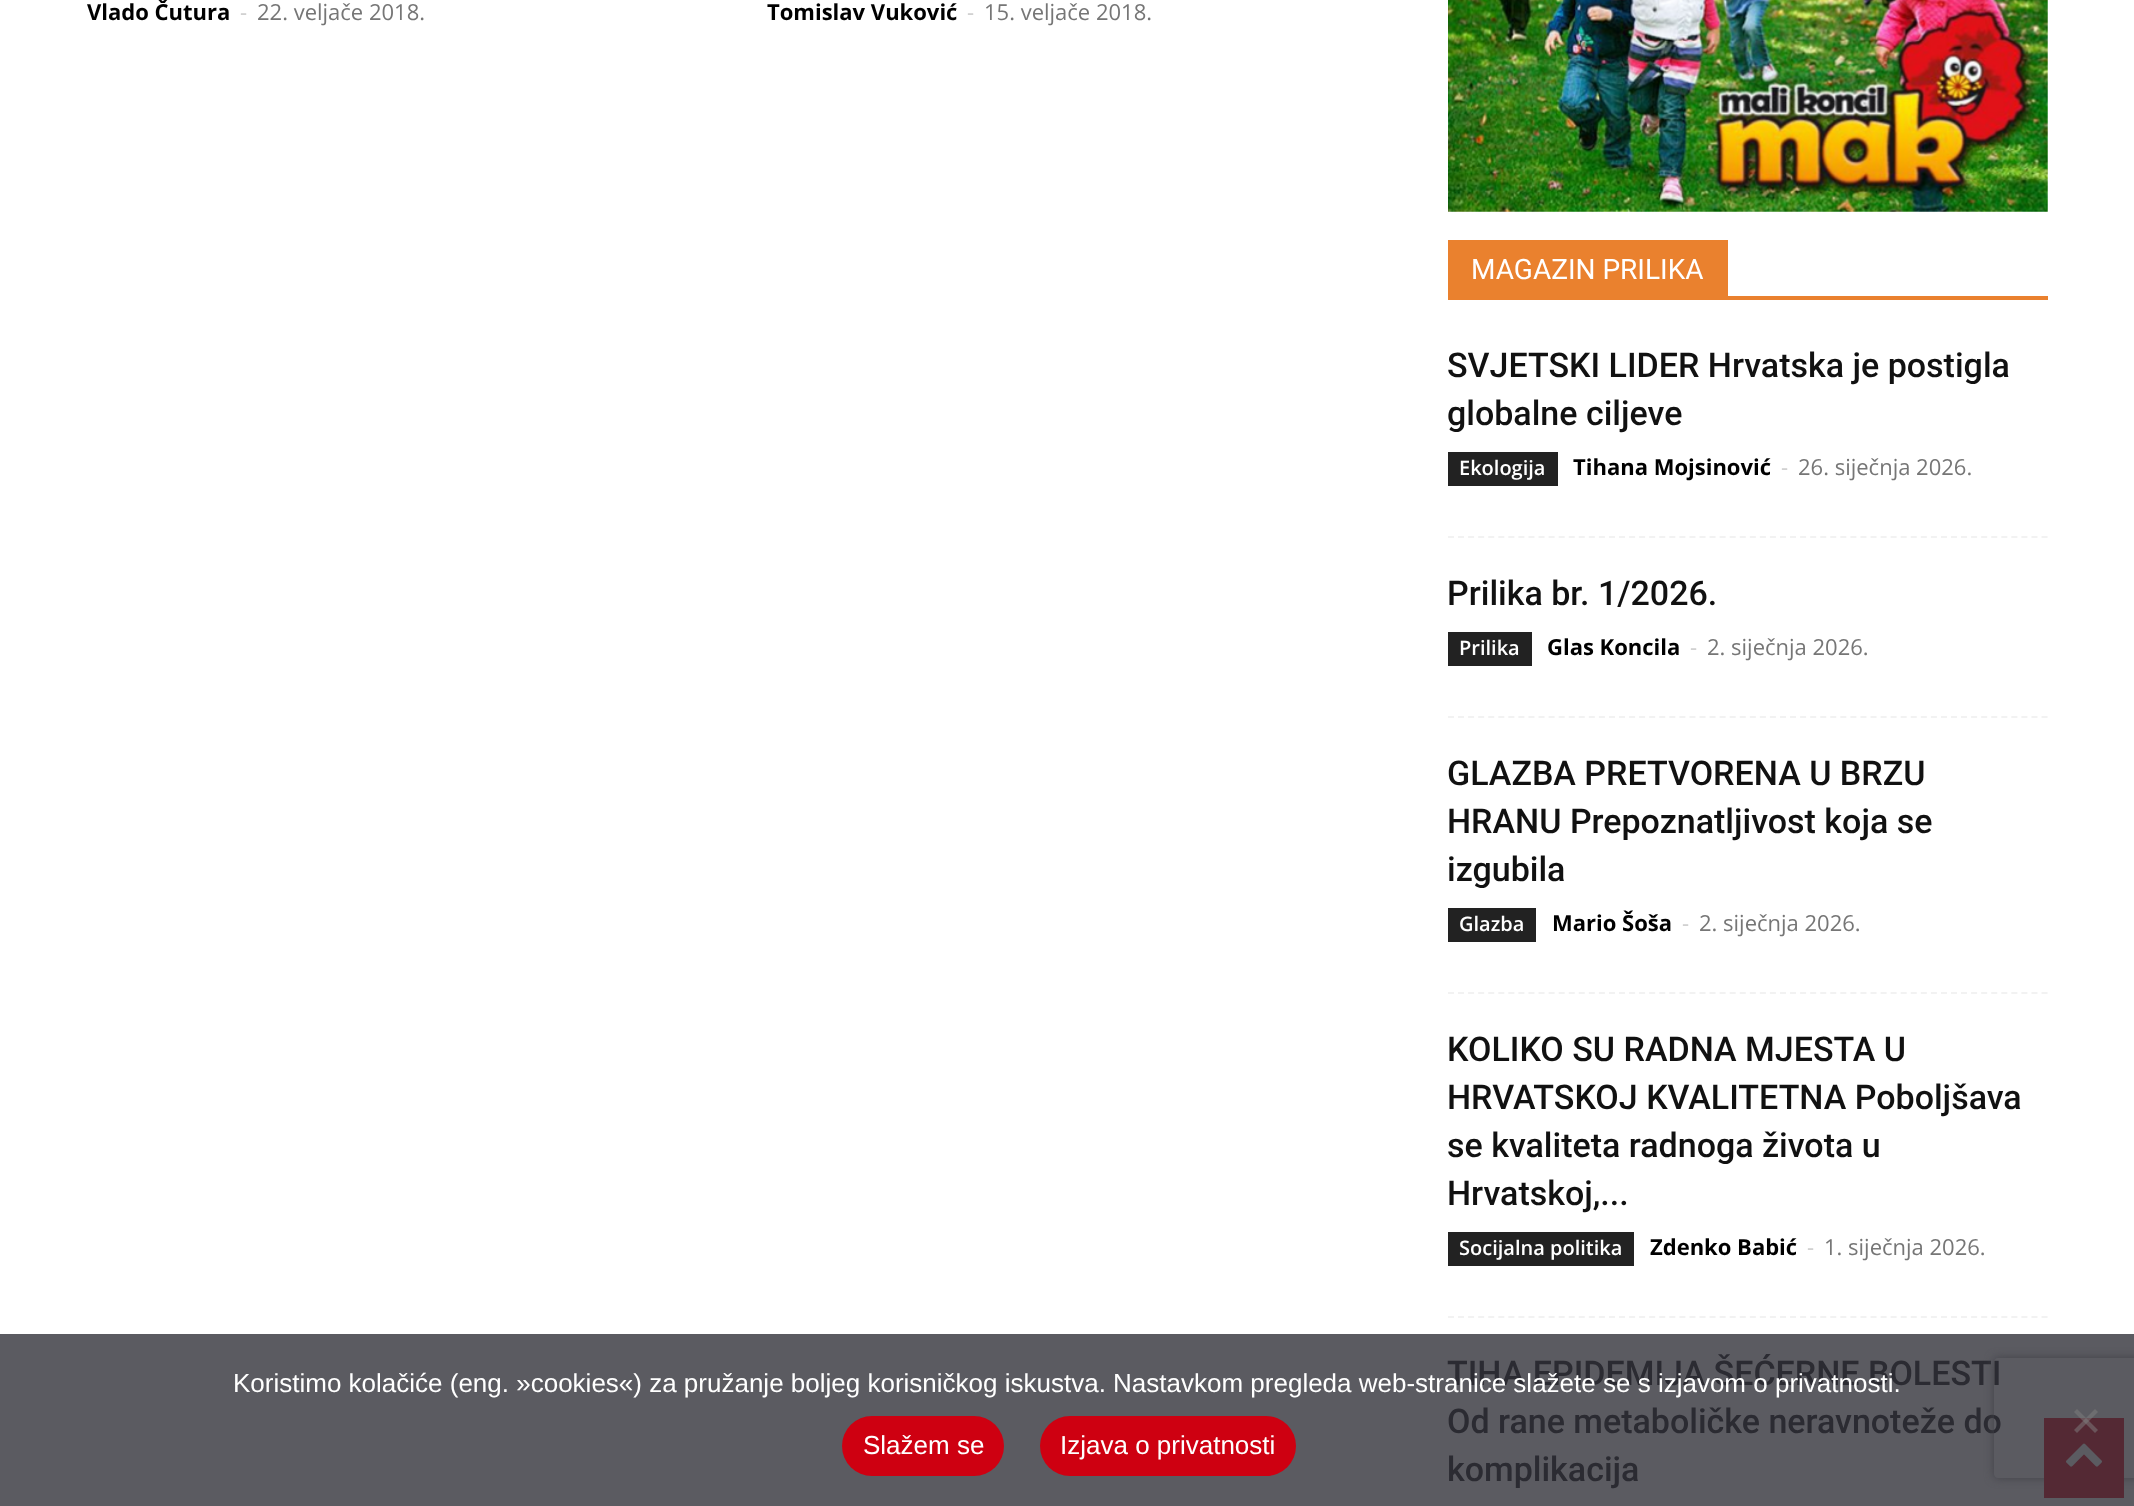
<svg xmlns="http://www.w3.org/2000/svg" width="2134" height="1506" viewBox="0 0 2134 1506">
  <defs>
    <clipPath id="clip1"><path d="M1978 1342H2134V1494H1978ZM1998 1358H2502C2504 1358 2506 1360 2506 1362V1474C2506 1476 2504 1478 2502 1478H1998C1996 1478 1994 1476 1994 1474V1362C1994 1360 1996 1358 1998 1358Z" clip-rule="evenodd"/></clipPath>
  </defs>
  <rect width="100%" height="100%" fill="rgb(255,255,255)"/>
  <rect x="0" y="1334" width="2134" height="172" fill="rgb(91,91,97)"/>
  <text x="87" y="20" font-family="Open Sans" font-size="22" font-weight="bold" fill="rgb(0,0,0)">Vlado Čutura</text>
  <text x="240" y="20" font-family="Open Sans" font-size="22" fill="rgb(204,204,204)">-</text>
  <text x="257" y="20" font-family="Open Sans" font-size="22" fill="rgb(118,118,118)">22. veljače 2018.</text>
  <text x="767" y="20" font-family="Open Sans" font-size="22" font-weight="bold" fill="rgb(0,0,0)">Tomislav Vuković</text>
  <text x="967" y="20" font-family="Open Sans" font-size="22" fill="rgb(204,204,204)">-</text>
  <text x="984" y="20" font-family="Open Sans" font-size="22" fill="rgb(118,118,118)">15. veljače 2018.</text>
  <image x="1448" y="0" width="600" height="212" href="pic1.png"/>
  <rect x="1448" y="296" width="600" height="4" fill="rgb(234,129,46)"/>
  <rect x="1448" y="240" width="280" height="56" fill="rgb(234,129,46)"/>
  <text x="1471" y="279" font-family="Roboto" font-size="28" fill="rgb(255,255,255)">MAGAZIN PRILIKA</text>
  <path d="M1448 537H2048" fill="none" stroke="rgb(242,242,242)" stroke-width="2" stroke-dasharray="6 4.06"/>
  <g font-family="Roboto" font-size="34" font-weight="500" fill="rgb(17,17,17)">
    <text>
      <tspan x="1447" y="377">SVJETSKI LIDER Hrvatska je postigla</tspan>
      <tspan x="1447" y="425">globalne ciljeve</tspan>
    </text>
  </g>
  <rect x="1448" y="452" width="110" height="34" fill="rgb(34,34,34)"/>
  <text x="1459" y="475" font-family="Open Sans" font-size="20" font-weight="600" fill="rgb(255,255,255)">Ekologija</text>
  <text x="1573" y="475" font-family="Open Sans" font-size="22" font-weight="bold" fill="rgb(0,0,0)">Tihana Mojsinović</text>
  <text x="1781" y="475" font-family="Open Sans" font-size="22" fill="rgb(204,204,204)">-</text>
  <text x="1798" y="475" font-family="Open Sans" font-size="22" fill="rgb(118,118,118)">26. siječnja 2026.</text>
  <path d="M1448 717H2048" fill="none" stroke="rgb(242,242,242)" stroke-width="2" stroke-dasharray="6 4.06"/>
  <text x="1447" y="605" font-family="Roboto" font-size="34" font-weight="500" fill="rgb(17,17,17)">Prilika br. 1/2026.</text>
  <rect x="1448" y="632" width="84" height="34" fill="rgb(34,34,34)"/>
  <text x="1459" y="655" font-family="Open Sans" font-size="20" font-weight="600" fill="rgb(255,255,255)">Prilika</text>
  <text x="1547" y="655" font-family="Open Sans" font-size="22" font-weight="bold" fill="rgb(0,0,0)">Glas Koncila</text>
  <text x="1690" y="655" font-family="Open Sans" font-size="22" fill="rgb(204,204,204)">-</text>
  <text x="1707" y="655" font-family="Open Sans" font-size="22" fill="rgb(118,118,118)">2. siječnja 2026.</text>
  <path d="M1448 993H2048" fill="none" stroke="rgb(242,242,242)" stroke-width="2" stroke-dasharray="6 4.06"/>
  <g font-family="Roboto" font-size="34" font-weight="500" fill="rgb(17,17,17)">
    <text>
      <tspan x="1447" y="785">GLAZBA PRETVORENA U BRZU</tspan>
      <tspan x="1447" y="833">HRANU Prepoznatljivost koja se</tspan>
      <tspan x="1447" y="881">izgubila</tspan>
    </text>
  </g>
  <rect x="1448" y="908" width="88" height="34" fill="rgb(34,34,34)"/>
  <text x="1459" y="931" font-family="Open Sans" font-size="20" font-weight="600" fill="rgb(255,255,255)">Glazba</text>
  <text x="1552" y="931" font-family="Open Sans" font-size="22" font-weight="bold" fill="rgb(0,0,0)">Mario Šoša</text>
  <text x="1682" y="931" font-family="Open Sans" font-size="22" fill="rgb(204,204,204)">-</text>
  <text x="1699" y="931" font-family="Open Sans" font-size="22" fill="rgb(118,118,118)">2. siječnja 2026.</text>
  <path d="M1448 1317H2048" fill="none" stroke="rgb(242,242,242)" stroke-width="2" stroke-dasharray="6 4.06"/>
  <g font-family="Roboto" font-size="34" font-weight="500" fill="rgb(17,17,17)">
    <text>
      <tspan x="1447" y="1061">KOLIKO SU RADNA MJESTA U</tspan>
      <tspan x="1447" y="1109">HRVATSKOJ KVALITETNA Poboljšava</tspan>
      <tspan x="1447" y="1157">se kvaliteta radnoga života u</tspan>
      <tspan x="1447" y="1205">Hrvatskoj,...</tspan>
    </text>
  </g>
  <rect x="1448" y="1232" width="186" height="34" fill="rgb(34,34,34)"/>
  <text x="1459" y="1255" font-family="Open Sans" font-size="20" font-weight="600" fill="rgb(255,255,255)">Socijalna politika</text>
  <text x="1650" y="1255" font-family="Open Sans" font-size="22" font-weight="bold" fill="rgb(0,0,0)">Zdenko Babić</text>
  <text x="1807" y="1255" font-family="Open Sans" font-size="22" fill="rgb(204,204,204)">-</text>
  <text x="1824" y="1255" font-family="Open Sans" font-size="22" fill="rgb(118,118,118)">1. siječnja 2026.</text>
  <g font-family="Roboto" font-size="34" font-weight="500" fill="rgb(43,43,50)">
    <text>
      <tspan x="1447" y="1385">TIHA EPIDEMIJA ŠEĆERNE BOLESTI</tspan>
      <tspan x="1447" y="1433">Od rane metaboličke neravnoteže do</tspan>
      <tspan x="1447" y="1481">komplikacija</tspan>
    </text>
  </g>
  <g clip-path="url(#clip1)">
    <rect x="1994" y="1358" width="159" height="120" rx="4" fill="rgb(66,66,72)" filter="blur(5px)"/>
  </g>
  <text x="233" y="1392" font-family="Liberation Sans" font-size="26" fill="rgb(255,255,255)">Koristimo kolačiće (eng. »cookies«) za pružanje boljeg korisničkog iskustva. Nastavkom pregleda web-stranice slažete se s izjavom o privatnosti.</text>
  <rect x="2044" y="1418" width="80" height="80" fill="rgb(84,41,52)"/>
  <path d="M2095 1409L2098 1412L2077 1433L2074 1430Z" fill="rgba(128,128,128,0.5)"/>
  <path d="M2074 1412L2077 1409L2098 1430L2095 1433Z" fill="rgba(128,128,128,0.5)"/>
  <rect x="842" y="1416" width="162" height="60" rx="30" fill="rgb(206,0,17)"/>
  <text x="863" y="1454" font-family="Liberation Sans" font-size="26" fill="rgb(255,255,255)">Slažem se</text>
  <rect x="1040" y="1416" width="256" height="60" rx="30" fill="rgb(206,0,17)"/>
  <text x="1060" y="1454" font-family="Liberation Sans" font-size="26" fill="rgb(255,255,255)">Izjava o privatnosti</text>
  <image x="2066" y="1443" width="36" height="24" href="pic2.png"/>
</svg>
